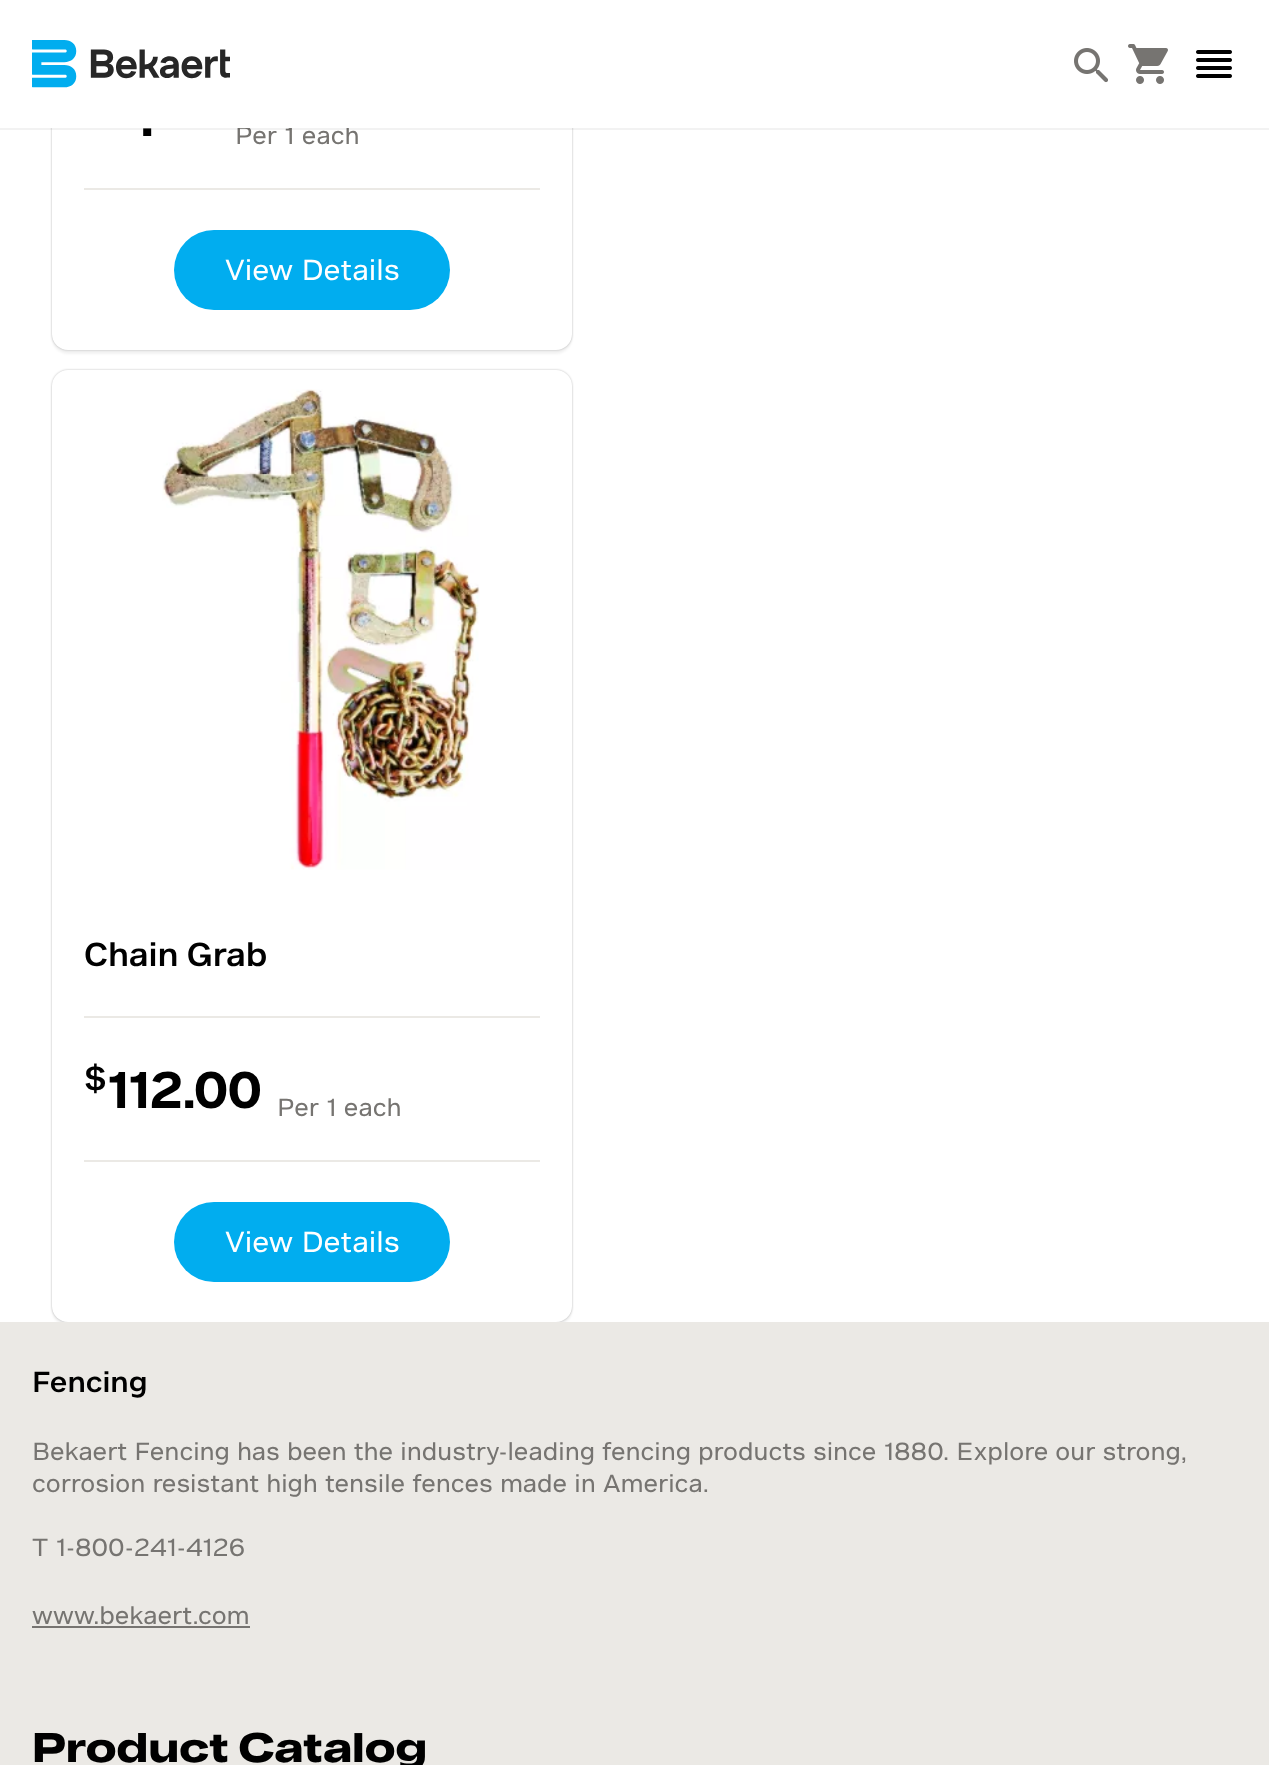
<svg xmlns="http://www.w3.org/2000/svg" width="1269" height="1765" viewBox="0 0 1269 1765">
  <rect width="100%" height="100%" fill="rgb(255,255,255)"/>
  <rect x="52" y="-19" width="520" height="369" rx="16" fill="rgba(0,0,0,0.25)" filter="blur(1px)"/>
  <rect x="52" y="-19" width="520" height="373" rx="16" fill="rgba(0,0,0,0.05)" filter="blur(1px)"/>
  <rect x="52" y="-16" width="520" height="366" rx="16" fill="rgb(255,255,255)"/>
  <text x="235" y="144" font-family="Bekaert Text" font-size="24" fill="rgb(118,116,113)">Per 1 each</text>
  <rect x="50" y="0" width="524" height="128" fill="rgb(255,255,255)"/>
  <rect x="0" y="128" width="1269" height="2" fill="rgba(0,0,0,0.05)"/>
  <image x="32" y="40" width="198" height="48" href="pic1.png"/>
  <image x="1074" y="48" width="34" height="35" href="pic2.png"/>
  <image x="1128" y="44" width="40" height="40" href="pic3.png"/>
  <image x="1196" y="50" width="36" height="28" href="pic4.png"/>
  <text x="140" y="136" font-family="Bekaert Text" font-size="48" font-weight="bold" fill="rgb(0,0,0)">.</text>
  <rect x="84" y="188" width="456" height="2" fill="rgb(235,233,229)"/>
  <rect x="174" y="230" width="276" height="80" rx="40" fill="rgb(1,173,239)"/>
  <text x="225" y="280" font-family="Bekaert Text" font-size="28" fill="rgb(255,255,255)">View Details</text>
  <rect x="52" y="370" width="520" height="952" rx="16" fill="rgba(0,0,0,0.25)" filter="blur(1px)"/>
  <rect x="52" y="374" width="520" height="952" rx="16" fill="rgba(0,0,0,0.05)" filter="blur(1px)"/>
  <rect x="52" y="370" width="520" height="952" rx="16" fill="rgb(255,255,255)"/>
  <image x="162" y="389" width="318" height="481" href="pic5.png"/>
  <text x="84" y="966" font-family="Bekaert Text" font-size="32" font-weight="500" fill="rgb(0,0,0)">Chain Grab</text>
  <rect x="84" y="1016" width="456" height="2" fill="rgb(235,233,229)"/>
  <text x="84" y="1090" font-family="Bekaert Text" font-size="32" font-weight="500" fill="rgb(0,0,0)">$</text>
  <text x="107" y="1108" font-family="Bekaert Text" font-size="48" font-weight="bold" fill="rgb(0,0,0)">112.00</text>
  <text x="277" y="1116" font-family="Bekaert Text" font-size="24" fill="rgb(118,116,113)">Per 1 each</text>
  <rect x="84" y="1160" width="456" height="2" fill="rgb(235,233,229)"/>
  <rect x="174" y="1202" width="276" height="80" rx="40" fill="rgb(1,173,239)"/>
  <text x="225" y="1252" font-family="Bekaert Text" font-size="28" fill="rgb(255,255,255)">View Details</text>
  <rect x="0" y="1322" width="1269" height="443" fill="rgb(235,233,229)"/>
  <text x="32" y="1392" font-family="Bekaert Text" font-size="28" font-weight="500" fill="rgb(0,0,0)">Fencing</text>
  <g font-family="Bekaert Text" font-size="24" fill="rgb(118,116,113)">
    <text>
      <tspan x="32" y="1460">Bekaert Fencing has been the industry-leading fencing products since 1880. Explore our strong,</tspan>
      <tspan x="32" y="1492">corrosion resistant high tensile fences made in America.</tspan>
    </text>
    <text x="32" y="1556">T 1-800-241-4126</text>
    <text x="32" y="1624">www.bekaert.com</text>
  </g>
  <rect x="32" y="1626" width="218" height="2" fill="rgb(118,116,113)"/>
  <text x="32" y="1762" font-family="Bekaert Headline" font-size="40" font-weight="bold" fill="rgb(0,0,0)">Product Catalog</text>
</svg>
